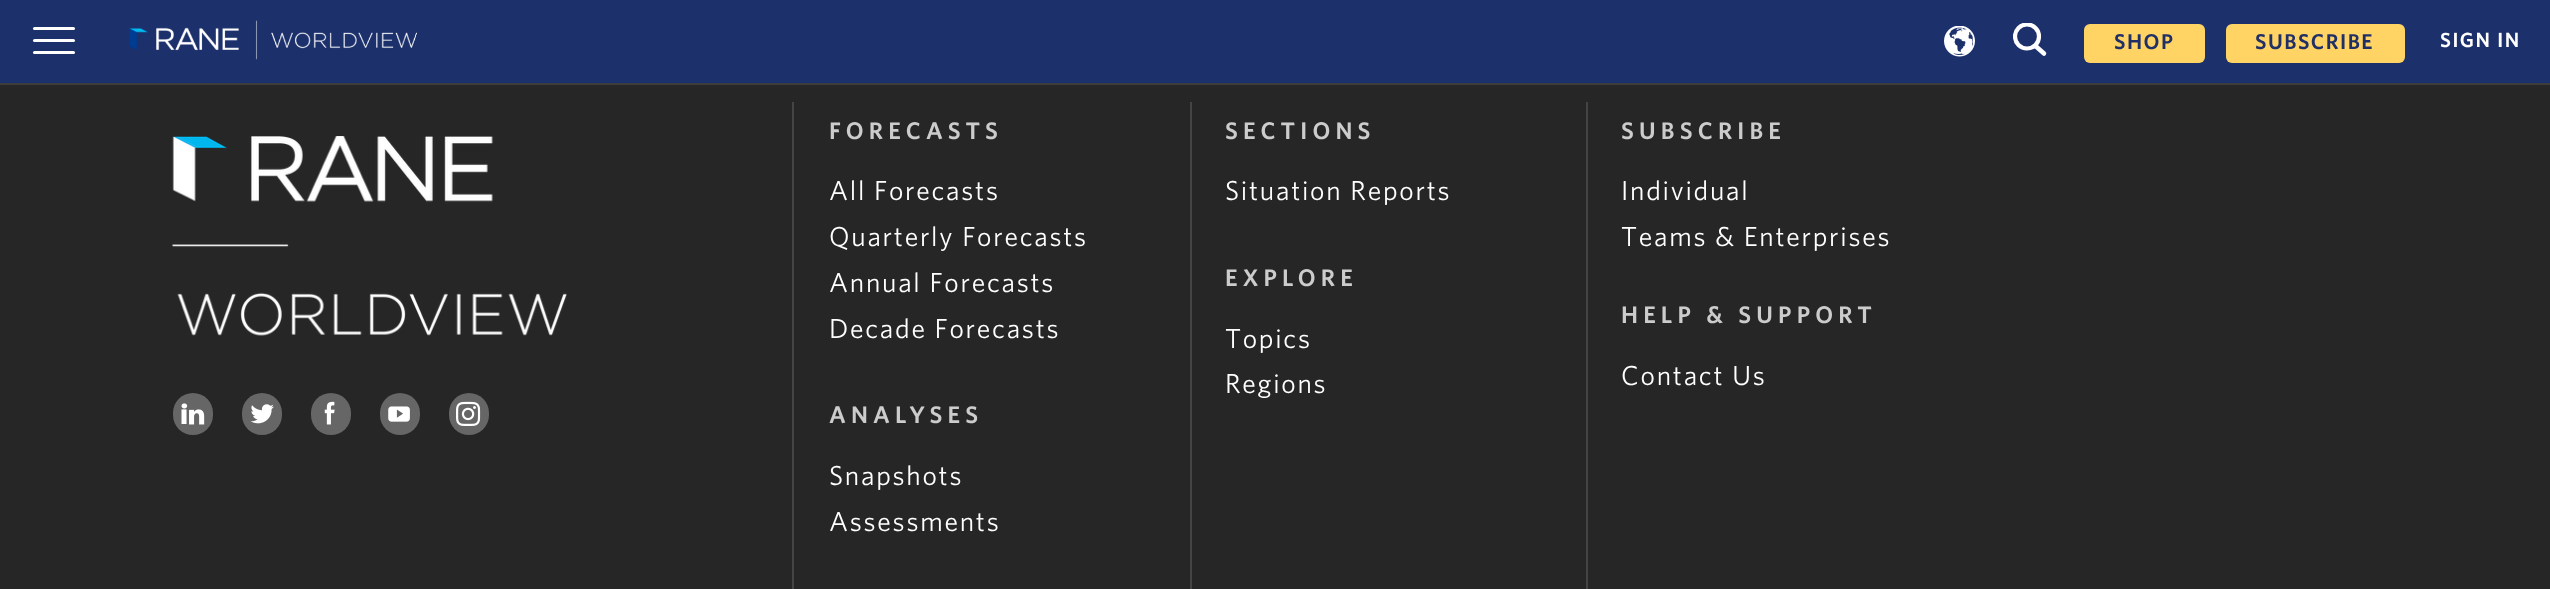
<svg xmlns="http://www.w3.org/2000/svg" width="2550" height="589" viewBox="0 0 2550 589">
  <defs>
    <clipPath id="clip1"><rect x="2013" y="23" width="33" height="33"/></clipPath>
  </defs>
  <rect width="100%" height="100%" fill="rgb(38,38,38)"/>
  <rect x="0" y="0" width="2550" height="83" fill="rgb(28,48,107)"/>
  <rect x="0" y="83" width="2550" height="2" fill="rgb(61,61,61)"/>
  <rect x="33" y="39" width="42" height="3" rx="1.5" fill="rgb(255,255,255)"/>
  <rect x="33" y="27" width="42" height="3" rx="1.5" fill="rgb(255,255,255)"/>
  <rect x="33" y="51" width="42" height="3" rx="1.5" fill="rgb(255,255,255)"/>
  <image x="129" y="20" width="288" height="40" href="pic1.png"/>
  <image x="1944" y="26" width="31" height="31" href="pic2.png"/>
  <path d="M2035.5 46L2044 53.5" fill="none" stroke="rgb(255,255,255)" stroke-width="4.5" stroke-linecap="round" stroke-linejoin="round"/>
  <g clip-path="url(#clip1)">
    <circle cx="2027" cy="36.5" r="12" fill="none" stroke="rgb(255,255,255)" stroke-width="4.2"/>
  </g>
  <rect x="2084" y="24" width="121" height="39" rx="6" fill="rgb(255,212,100)"/>
  <text x="2114" y="49" font-family="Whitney" font-size="21.5" font-weight="600" letter-spacing="1.5" fill="rgb(32,48,103)">SHOP</text>
  <rect x="2226" y="24" width="179" height="39" rx="6" fill="rgb(255,212,100)"/>
  <text x="2255" y="49" font-family="Whitney" font-size="21.5" font-weight="600" letter-spacing="1.5" fill="rgb(32,48,103)">SUBSCRIBE</text>
  <text x="2440" y="47" font-family="Whitney" font-size="20.5" font-weight="600" letter-spacing="1.5" fill="rgb(255,255,255)">SIGN IN</text>
  <image x="172" y="136" width="395" height="200" href="pic3.png"/>
  <rect x="173" y="393" width="40" height="42" rx="20" fill="rgb(102,102,102)"/>
  <image x="181" y="403" width="24" height="22" href="pic4.png"/>
  <rect x="242" y="393" width="40" height="42" rx="20" fill="rgb(102,102,102)"/>
  <image x="250" y="404" width="24" height="20" href="pic5.png"/>
  <rect x="311" y="393" width="40" height="42" rx="20" fill="rgb(102,102,102)"/>
  <image x="324" y="401" width="11" height="24" href="pic6.png"/>
  <rect x="380" y="393" width="40" height="42" rx="20" fill="rgb(102,102,102)"/>
  <image x="388" y="406" width="22" height="16" href="pic7.png"/>
  <rect x="449" y="393" width="40" height="42" rx="20" fill="rgb(102,102,102)"/>
  <image x="456" y="401" width="25" height="25" href="pic8.png"/>
  <rect x="792" y="102" width="2" height="487" fill="rgb(68,68,68)"/>
  <text x="829" y="139" font-family="Whitney" font-size="24.1" font-weight="600" letter-spacing="5.2" fill="rgb(204,204,204)">FORECASTS</text>
  <g font-family="Whitney" font-size="27.5" letter-spacing="1.75" fill="rgb(255,255,255)">
    <text>
      <tspan x="829" y="200">All Forecasts</tspan>
      <tspan x="829" y="246">Quarterly Forecasts</tspan>
      <tspan x="829" y="292">Annual Forecasts</tspan>
      <tspan x="829" y="338">Decade Forecasts</tspan>
    </text>
  </g>
  <text x="829" y="423" font-family="Whitney" font-size="24.1" font-weight="600" letter-spacing="5.2" fill="rgb(204,204,204)">ANALYSES</text>
  <g font-family="Whitney" font-size="27.5" letter-spacing="1.75" fill="rgb(255,255,255)">
    <text>
      <tspan x="829" y="485">Snapshots</tspan>
      <tspan x="829" y="531">Assessments</tspan>
    </text>
  </g>
  <rect x="1190" y="102" width="2" height="487" fill="rgb(68,68,68)"/>
  <text x="1225" y="139" font-family="Whitney" font-size="24.1" font-weight="600" letter-spacing="5.2" fill="rgb(204,204,204)">SECTIONS</text>
  <text x="1225" y="200" font-family="Whitney" font-size="27.5" letter-spacing="1.75" fill="rgb(255,255,255)">Situation Reports</text>
  <text x="1225" y="286" font-family="Whitney" font-size="24.1" font-weight="600" letter-spacing="5.2" fill="rgb(204,204,204)">EXPLORE</text>
  <g font-family="Whitney" font-size="27.5" letter-spacing="1.75" fill="rgb(255,255,255)">
    <text>
      <tspan x="1225" y="348">Topics</tspan>
      <tspan x="1225" y="393">Regions</tspan>
    </text>
  </g>
  <rect x="1586" y="102" width="2" height="487" fill="rgb(68,68,68)"/>
  <text x="1621" y="139" font-family="Whitney" font-size="24.1" font-weight="600" letter-spacing="5.2" fill="rgb(204,204,204)">SUBSCRIBE</text>
  <g font-family="Whitney" font-size="27.5" letter-spacing="1.75" fill="rgb(255,255,255)">
    <text>
      <tspan x="1621" y="200">Individual</tspan>
      <tspan x="1621" y="246">Teams &amp; Enterprises</tspan>
    </text>
  </g>
  <text x="1621" y="323" font-family="Whitney" font-size="24.1" font-weight="600" letter-spacing="5.2" fill="rgb(204,204,204)">HELP &amp; SUPPORT</text>
  <text x="1621" y="385" font-family="Whitney" font-size="27.5" letter-spacing="1.75" fill="rgb(255,255,255)">Contact Us</text>
</svg>
